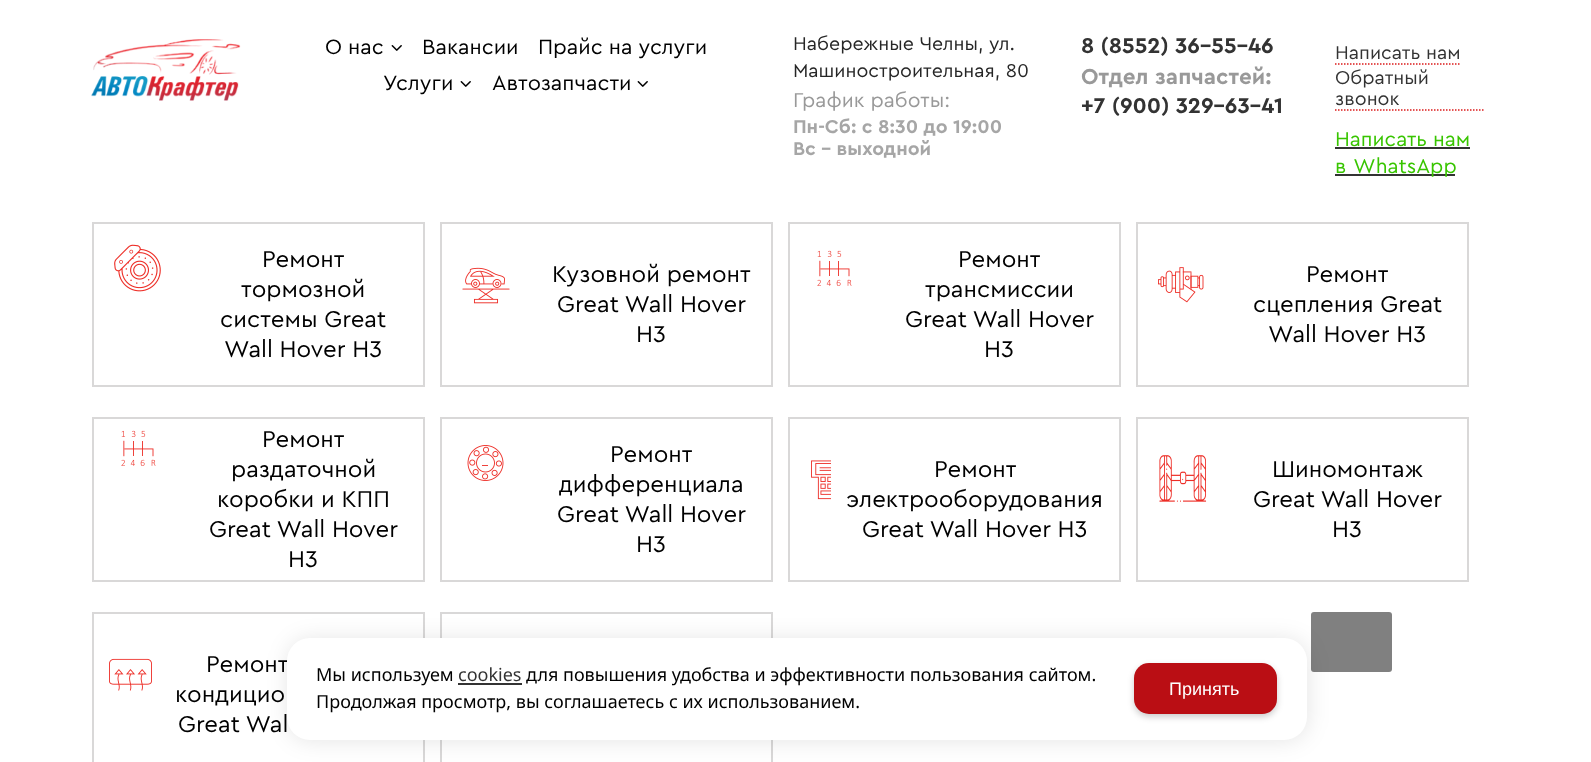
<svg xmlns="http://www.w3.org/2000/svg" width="1591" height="762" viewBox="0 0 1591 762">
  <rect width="100%" height="100%" fill="rgb(255,255,255)"/>
  <image x="91" y="39" width="150" height="62" href="pic1.png"/>
  <text x="325" y="54" font-family="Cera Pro" font-size="21.75" fill="rgb(0,0,0)">О нас</text>
  <image x="391" y="45" width="11" height="6" href="pic2.png"/>
  <g font-family="Cera Pro" font-size="21.75" fill="rgb(0,0,0)">
    <text x="422" y="54">Вакансии</text>
    <text x="538" y="54">Прайс на услуги</text>
    <text x="383" y="90">Услуги</text>
  </g>
  <image x="460" y="81" width="11" height="6" href="pic2.png"/>
  <text x="492" y="90" font-family="Cera Pro" font-size="21.75" fill="rgb(0,0,0)">Автозапчасти</text>
  <image x="637" y="81" width="11" height="6" href="pic2.png"/>
  <g font-family="Cera Pro" font-size="19.5" fill="rgb(38,38,38)">
    <text>
      <tspan x="793" y="50">Набережные Челны, ул.</tspan>
      <tspan x="793" y="77">Машиностроительная, 80</tspan>
    </text>
  </g>
  <text x="793" y="107" font-family="Cera Pro" font-size="21" fill="rgb(153,153,153)">График работы:</text>
  <g font-family="Cera Pro" font-size="19.5" font-weight="bold" fill="rgb(166,166,166)">
    <text>
      <tspan x="793" y="133">Пн-Сб: с 8:30 до 19:00</tspan>
      <tspan x="793" y="155">Вс - выходной</tspan>
    </text>
  </g>
  <text x="1081" y="53" font-family="Cera Pro" font-size="22.5" font-weight="bold" fill="rgb(51,51,51)">8 (8552) 36-55-46</text>
  <text x="1081" y="84" font-family="Cera Pro" font-size="22.5" font-weight="bold" fill="rgb(153,153,153)">Отдел запчастей:</text>
  <text x="1081" y="113" font-family="Cera Pro" font-size="22.5" font-weight="bold" fill="rgb(51,51,51)">+7 (900) 329-63-41</text>
  <path d="M1335 64H1461" fill="none" stroke="rgb(219,27,27)" stroke-width="1.5" stroke-dasharray="1.5 1.5"/>
  <text x="1335" y="59" font-family="Cera Pro" font-size="19.5" fill="rgb(51,51,51)">Написать нам</text>
  <path d="M1335 110H1485" fill="none" stroke="rgb(219,27,27)" stroke-width="1.5" stroke-dasharray="1.5 1.5"/>
  <g font-family="Cera Pro" font-size="19.5" fill="rgb(51,51,51)">
    <text>
      <tspan x="1335" y="84">Обратный</tspan>
      <tspan x="1335" y="105">звонок</tspan>
    </text>
  </g>
  <text x="1335" y="146" font-family="Cera Pro" font-size="21" fill="rgb(56,197,0)">Написать нам</text>
  <rect x="1335" y="147" width="135" height="2" fill="rgb(51,51,51)"/>
  <rect x="1335" y="174" width="120" height="2" fill="rgb(51,51,51)"/>
  <text x="1335" y="173" word-spacing="1" font-family="Cera Pro" font-size="21" fill="rgb(56,197,0)">в WhatsApp</text>
  <rect x="93" y="223" width="331" height="163" fill="none" stroke="rgb(217,216,216)" stroke-width="2"/>
  <image x="114" y="244" width="47" height="48" href="pic3.png"/>
  <g font-family="Cera Pro" font-size="24" fill="rgb(0,0,0)">
    <text x="262" y="267">Ремонт</text>
    <text x="241" y="297">тормозной</text>
    <text x="220" y="327">системы Great</text>
    <text x="224" y="357">Wall Hover H3</text>
  </g>
  <rect x="441" y="223" width="331" height="163" fill="none" stroke="rgb(217,216,216)" stroke-width="2"/>
  <image x="462" y="267" width="48" height="37" href="pic4.png"/>
  <g font-family="Cera Pro" font-size="24" fill="rgb(0,0,0)">
    <text x="552" y="282">Кузовной ремонт</text>
    <text x="557" y="312">Great Wall Hover</text>
    <text x="636" y="342">H3</text>
  </g>
  <rect x="789" y="223" width="331" height="163" fill="none" stroke="rgb(217,216,216)" stroke-width="2"/>
  <image x="817" y="250" width="35" height="36" href="pic5.png"/>
  <g font-family="Cera Pro" font-size="24" fill="rgb(0,0,0)">
    <text x="958" y="267">Ремонт</text>
    <text x="925" y="297">трансмиссии</text>
    <text x="905" y="327">Great Wall Hover</text>
    <text x="984" y="357">H3</text>
  </g>
  <rect x="1137" y="223" width="331" height="163" fill="none" stroke="rgb(217,216,216)" stroke-width="2"/>
  <image x="1158" y="267" width="46" height="36" href="pic6.png"/>
  <g font-family="Cera Pro" font-size="24" fill="rgb(0,0,0)">
    <text x="1306" y="282">Ремонт</text>
    <text x="1253" y="312">сцепления Great</text>
    <text x="1268" y="342">Wall Hover H3</text>
  </g>
  <rect x="93" y="418" width="331" height="163" fill="none" stroke="rgb(217,216,216)" stroke-width="2"/>
  <image x="121" y="430" width="35" height="36" href="pic5.png"/>
  <g font-family="Cera Pro" font-size="24" fill="rgb(0,0,0)">
    <text x="262" y="447">Ремонт</text>
    <text x="231" y="477">раздаточной</text>
    <text x="217" y="507">коробки и КПП</text>
    <text x="209" y="537">Great Wall Hover</text>
    <text x="288" y="567">H3</text>
  </g>
  <rect x="441" y="418" width="331" height="163" fill="none" stroke="rgb(217,216,216)" stroke-width="2"/>
  <image x="467" y="445" width="37" height="36" href="pic7.png"/>
  <g font-family="Cera Pro" font-size="24" fill="rgb(0,0,0)">
    <text x="610" y="462">Ремонт</text>
    <text x="559" y="492">дифференциала</text>
    <text x="557" y="522">Great Wall Hover</text>
    <text x="636" y="552">H3</text>
  </g>
  <rect x="789" y="418" width="331" height="163" fill="none" stroke="rgb(217,216,216)" stroke-width="2"/>
  <image x="811" y="460" width="20" height="40" href="pic8.png"/>
  <g font-family="Cera Pro" font-size="24" fill="rgb(0,0,0)">
    <text x="934" y="477">Ремонт</text>
    <text x="846" y="507">электрооборудования</text>
    <text x="862" y="537">Great Wall Hover H3</text>
  </g>
  <rect x="1137" y="418" width="331" height="163" fill="none" stroke="rgb(217,216,216)" stroke-width="2"/>
  <image x="1159" y="455" width="48" height="47" href="pic9.png"/>
  <g font-family="Cera Pro" font-size="24" fill="rgb(0,0,0)">
    <text x="1272" y="477">Шиномонтаж</text>
    <text x="1253" y="507">Great Wall Hover</text>
    <text x="1332" y="537">H3</text>
  </g>
  <rect x="93" y="613" width="331" height="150" fill="none" stroke="rgb(217,216,216)" stroke-width="2"/>
  <image x="109" y="658" width="43" height="33" href="pic10.png"/>
  <g font-family="Cera Pro" font-size="24" fill="rgb(0,0,0)">
    <text x="206" y="672">Ремонт</text>
    <text x="175" y="702">кондицио</text>
    <text x="178" y="732">Great Wal</text>
  </g>
  <rect x="441" y="613" width="331" height="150" fill="none" stroke="rgb(217,216,216)" stroke-width="2"/>
  <rect x="1311" y="612" width="81" height="60" rx="3" fill="rgb(128,128,128)"/>
  <rect x="288" y="639" width="1020" height="102" rx="23" fill="rgba(0,0,0,0.1)" filter="blur(11px)"/>
  <rect x="287" y="638" width="1020" height="102" rx="23" fill="rgb(255,255,255)"/>
  <text x="316" y="681" font-family="Noto Sans" font-size="18" fill="rgb(0,0,0)">Мы используем</text>
  <text x="458" y="681" font-family="Noto Sans" font-size="18" fill="rgb(51,51,51)">cookies</text>
  <rect x="458" y="683" width="64" height="2" fill="rgb(51,51,51)"/>
  <g font-family="Noto Sans" font-size="18" fill="rgb(0,0,0)">
    <text x="526" y="681">для повышения удобства и эффективности пользования сайтом.</text>
    <text x="316" y="708">Продолжая просмотр, вы соглашаетесь с их использованием.</text>
  </g>
  <rect x="1134" y="666" width="143" height="51" rx="15" fill="rgba(0,0,0,0.2)" filter="blur(3px)"/>
  <rect x="1134" y="663" width="143" height="51" rx="15" fill="rgb(186,14,20)"/>
  <text x="1169" y="695" font-family="Liberation Sans" font-size="18" fill="rgb(255,255,255)">Принять</text>
</svg>
